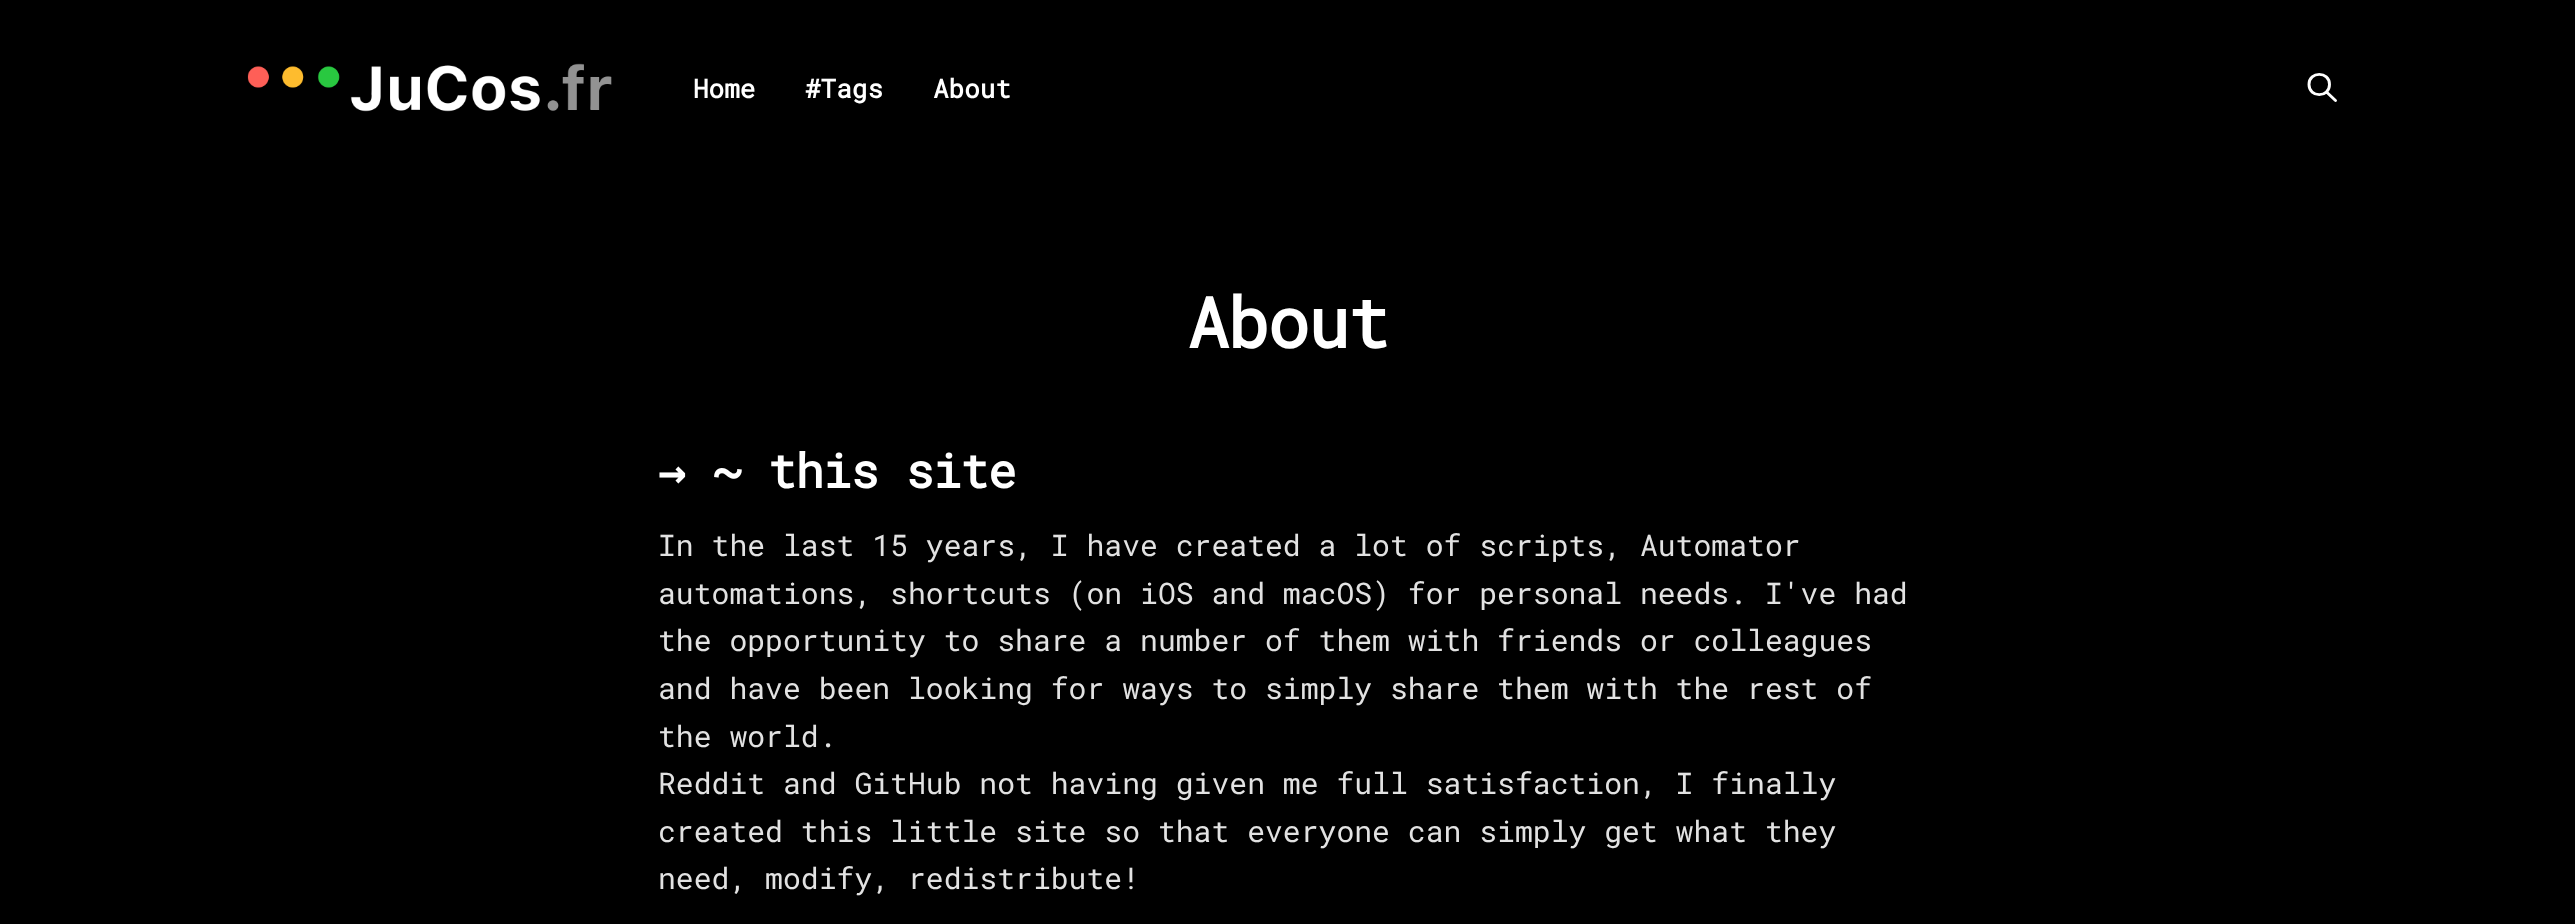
<svg xmlns="http://www.w3.org/2000/svg" width="2575" height="924" viewBox="0 0 2575 924">
  <rect width="100%" height="100%" fill="rgb(0,0,0)"/>
  <image x="247" y="63" width="365" height="49" href="pic1.png"/>
  <g font-family="Roboto Mono" font-size="26" font-weight="bold" fill="rgb(255,255,255)">
    <text x="693" y="98">Home</text>
    <text x="805" y="98">#Tags</text>
    <text x="933" y="98">About</text>
  </g>
  <path d="M2335.5 100.5L2326.5 92M2329.5 84.5C2329.5 98 2309 98 2309 84.5C2309 71 2329.5 71 2329.5 84.5Z" fill="none" stroke="rgb(255,255,255)" stroke-width="2.9" stroke-linecap="round" stroke-linejoin="round"/>
  <text x="1187" y="348" font-family="Roboto Mono" font-size="70" font-weight="bold" letter-spacing="-1.75" fill="rgb(255,255,255)">About</text>
  <text x="658" y="488" font-family="DejaVu Sans Mono" font-size="47.5" font-weight="bold" letter-spacing="-1" fill="rgb(255,255,255)">→</text>
  <text x="713" y="488" font-family="Roboto Mono" font-size="47.5" font-weight="bold" letter-spacing="-1" fill="rgb(255,255,255)">~ this site</text>
  <g font-family="Roboto Mono" font-size="29.75" fill="rgb(226,226,226)">
    <text>
      <tspan x="658" y="556">In the last 15 years, I have created a lot of scripts, Automator</tspan>
      <tspan x="658" y="604">automations, shortcuts (on iOS and macOS) for personal needs. I've had</tspan>
      <tspan x="658" y="651">the opportunity to share a number of them with friends or colleagues</tspan>
      <tspan x="658" y="699">and have been looking for ways to simply share them with the rest of</tspan>
      <tspan x="658" y="747">the world.</tspan>
      <tspan x="658" y="794">Reddit and GitHub not having given me full satisfaction, I finally</tspan>
      <tspan x="658" y="842">created this little site so that everyone can simply get what they</tspan>
      <tspan x="658" y="889">need, modify, redistribute!</tspan>
    </text>
  </g>
</svg>
